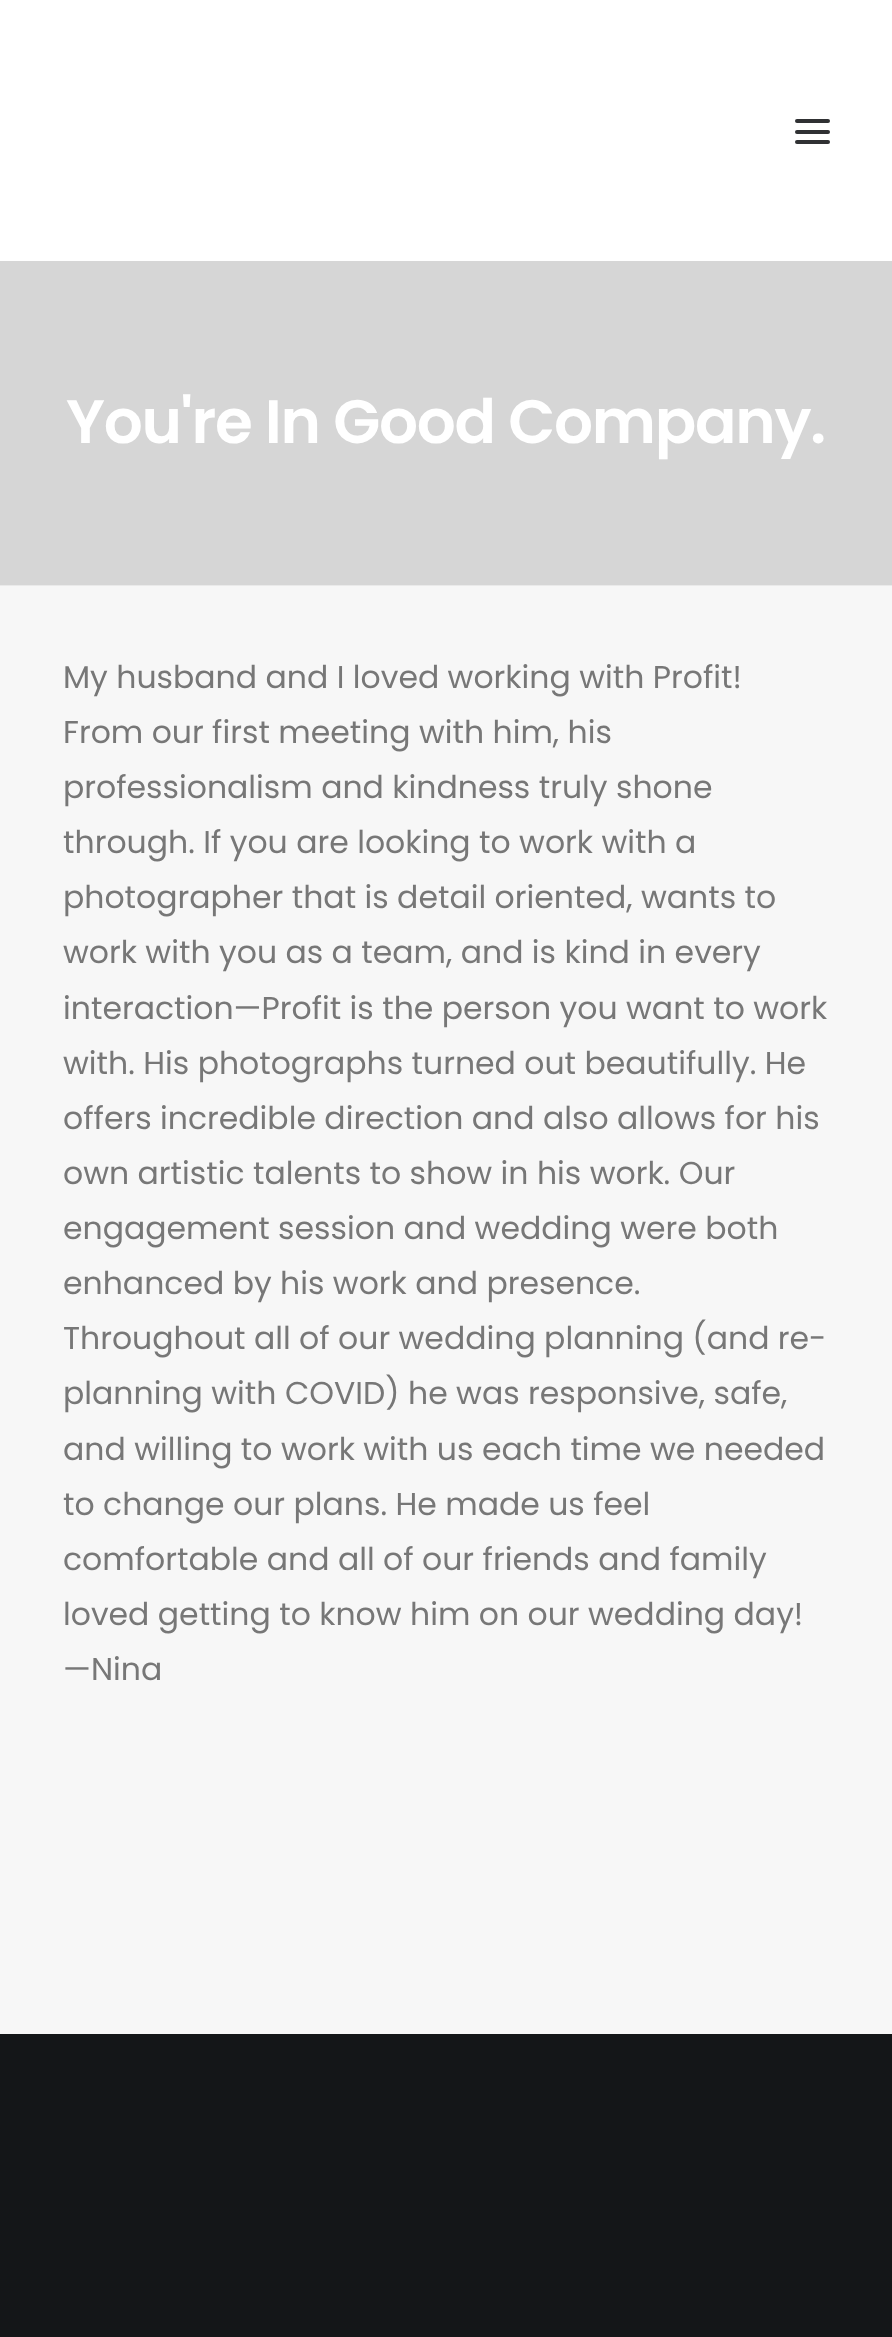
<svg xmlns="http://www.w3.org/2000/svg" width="892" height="2337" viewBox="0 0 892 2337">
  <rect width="100%" height="100%" fill="rgb(234,234,234)"/>
  <rect x="0" y="0" width="892" height="261" fill="rgb(255,255,255)"/>
  <rect x="795" y="130" width="35" height="4" rx="2" fill="rgb(48,49,51)"/>
  <rect x="795" y="119" width="35" height="4" rx="2" fill="rgb(48,49,51)"/>
  <rect x="795" y="140" width="35" height="4" rx="2" fill="rgb(48,49,51)"/>
  <rect x="0" y="261" width="892" height="324" fill="rgb(214,214,214)"/>
  <text x="66" y="443" font-family="Poppins" font-size="61.25" font-weight="600" letter-spacing="-1.25" fill="rgb(255,255,255)">You're In Good Company.</text>
  <rect x="0" y="586" width="892" height="1448" fill="rgb(247,247,247)"/>
  <g font-family="Poppins" font-size="31.5" fill="rgb(119,119,119)">
    <text>
      <tspan x="63" y="688">My husband and I loved working with Profit!</tspan>
      <tspan x="63" y="743">From our first meeting with him, his</tspan>
      <tspan x="63" y="798">professionalism and kindness truly shone</tspan>
      <tspan x="63" y="853">through. If you are looking to work with a</tspan>
      <tspan x="63" y="908">photographer that is detail oriented, wants to</tspan>
      <tspan x="63" y="963">work with you as a team, and is kind in every</tspan>
      <tspan x="63" y="1019">interaction—Profit is the person you want to work</tspan>
      <tspan x="63" y="1074">with. His photographs turned out beautifully. He</tspan>
      <tspan x="63" y="1129">offers incredible direction and also allows for his</tspan>
      <tspan x="63" y="1184">own artistic talents to show in his work. Our</tspan>
      <tspan x="63" y="1239">engagement session and wedding were both</tspan>
      <tspan x="63" y="1294">enhanced by his work and presence.</tspan>
      <tspan x="63" y="1349">Throughout all of our wedding planning (and re-</tspan>
      <tspan x="63" y="1404">planning with COVID) he was responsive, safe,</tspan>
      <tspan x="63" y="1460">and willing to work with us each time we needed</tspan>
      <tspan x="63" y="1515">to change our plans. He made us feel</tspan>
      <tspan x="63" y="1570">comfortable and all of our friends and family</tspan>
      <tspan x="63" y="1625">loved getting to know him on our wedding day!</tspan>
      <tspan x="63" y="1680">—Nina</tspan>
    </text>
  </g>
  <rect x="0" y="2034" width="892" height="303" fill="rgb(20,22,24)"/>
</svg>
